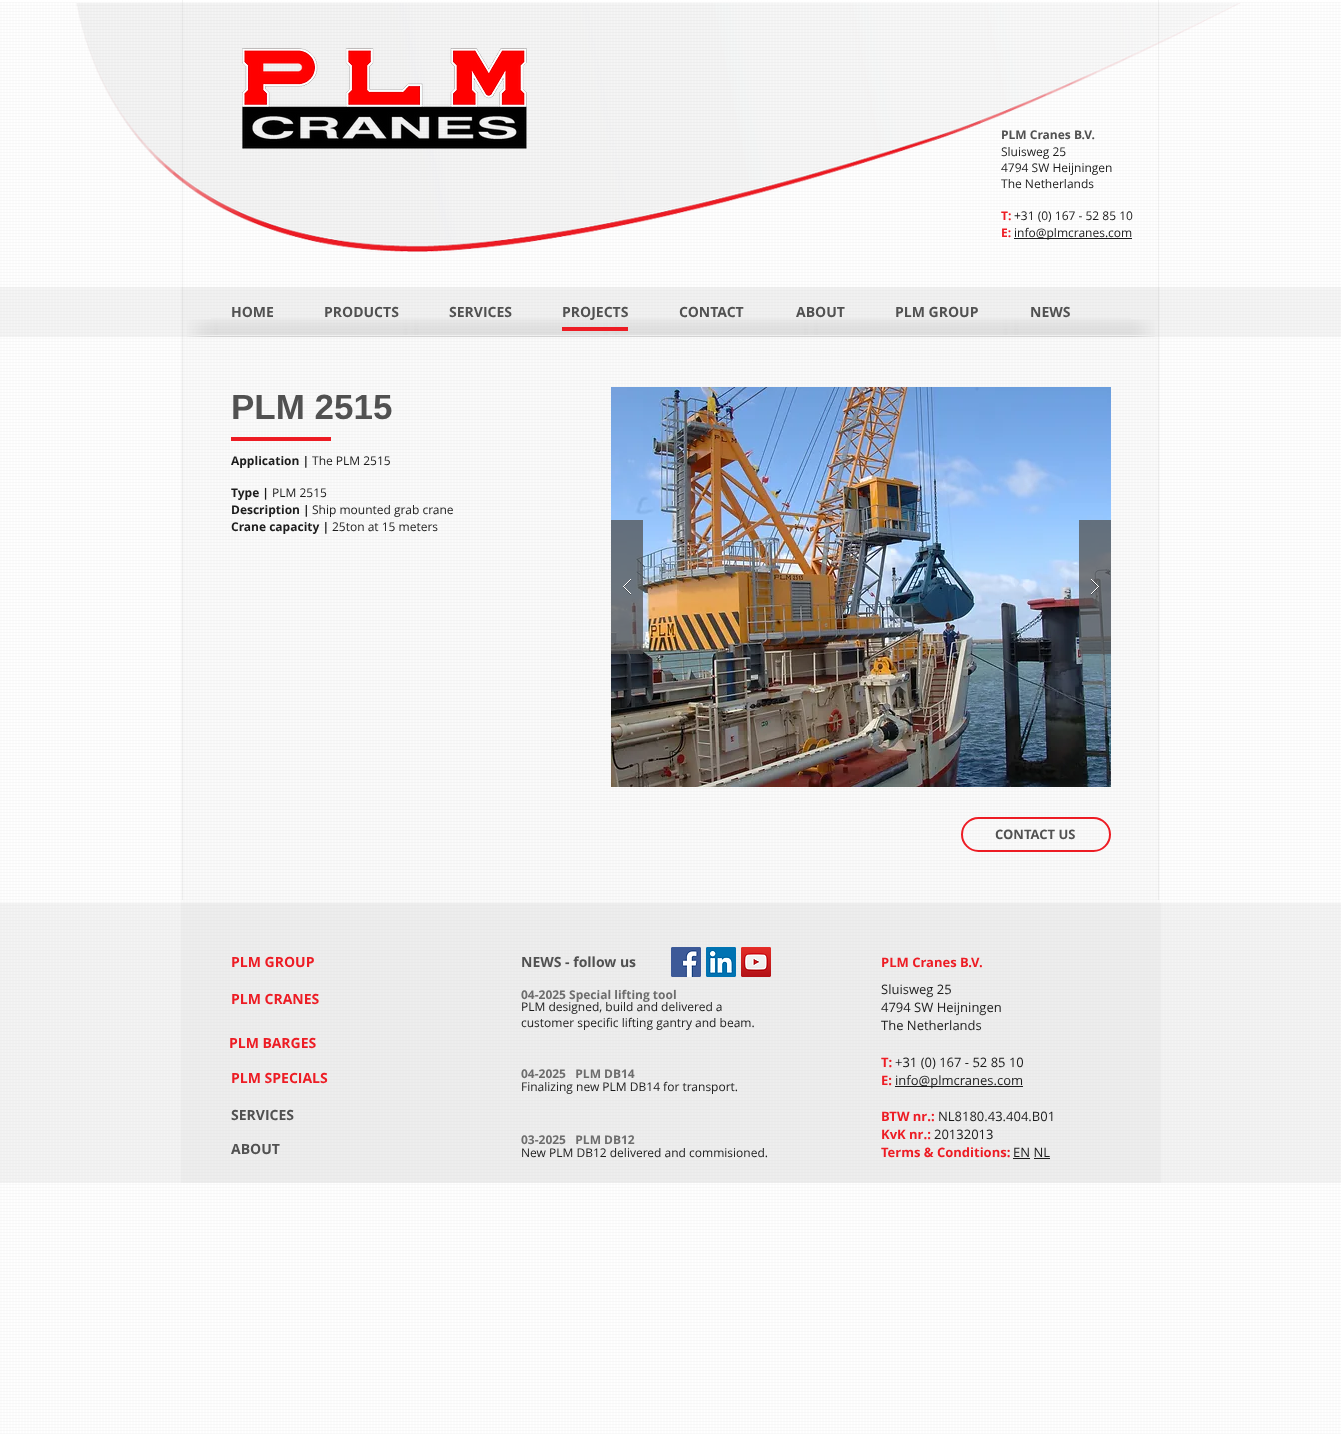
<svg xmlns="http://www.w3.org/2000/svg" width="1341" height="1436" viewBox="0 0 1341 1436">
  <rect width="100%" height="100%" fill="rgb(255,255,255)"/>
  <image x="0" y="2" width="1341" height="1432" href="pic1.png"/>
  <image x="76" y="3" width="1164" height="250" href="pic2.png"/>
  <image x="242" y="48" width="285" height="101" href="pic3.png"/>
  <text x="1001" y="139" font-family="Open Sans" font-size="12" font-weight="bold" fill="rgb(81,81,81)">PLM Cranes B.V.</text>
  <g font-family="Open Sans" font-size="12" fill="rgb(28,28,28)">
    <text>
      <tspan x="1001" y="156">Sluisweg 25</tspan>
      <tspan x="1001" y="172">4794 SW Heijningen</tspan>
      <tspan x="1001" y="188">The Netherlands</tspan>
    </text>
  </g>
  <text x="1001" y="220" font-family="Open Sans" font-size="12" font-weight="bold" fill="rgb(237,28,36)">T:</text>
  <text x="1014" y="220" font-family="Open Sans" font-size="12" fill="rgb(28,28,28)">+31 (0) 167 - 52 85 10</text>
  <text x="1001" y="237" font-family="Open Sans" font-size="12" font-weight="bold" fill="rgb(237,28,36)">E:</text>
  <rect x="1014" y="238" width="118" height="1" fill="rgb(28,28,28)"/>
  <text x="1014" y="237" font-family="Open Sans" font-size="12" fill="rgb(28,28,28)">info@plmcranes.com</text>
  <rect x="0" y="287" width="1341" height="50" fill="rgba(209,209,209,0.21)"/>
  <rect x="181" y="287" width="979" height="616" fill="rgba(209,209,209,0.09)"/>
  <rect x="182" y="0" width="1" height="900" fill="rgba(28,28,28,0.05)"/>
  <rect x="1158" y="0" width="1" height="900" fill="rgba(28,28,28,0.05)"/>
  <g font-family="Open Sans" font-size="14" font-weight="bold" fill="rgb(81,81,81)">
    <text x="231" y="317">HOME</text>
    <text x="324" y="317">PRODUCTS</text>
    <text x="449" y="317">SERVICES</text>
  </g>
  <image x="211" y="318" width="920" height="19" href="pic5.png"/>
  <g font-family="Open Sans" font-size="14" font-weight="bold" fill="rgb(81,81,81)">
    <text x="562" y="317">PROJECTS</text>
    <text x="679" y="317">CONTACT</text>
    <text x="796" y="317">ABOUT</text>
    <text x="895" y="317">PLM GROUP</text>
    <text x="1030" y="317">NEWS</text>
  </g>
  <rect x="562" y="327" width="66" height="4" fill="rgb(237,28,36)"/>
  <image x="187" y="319" width="24" height="18" href="pic4.png"/>
  <image x="1131" y="319" width="24" height="18" href="pic6.png"/>
  <text x="231" y="419" font-family="Liberation Sans" font-size="35" font-weight="bold" fill="rgb(81,81,81)">PLM 2515</text>
  <image x="611" y="387" width="500" height="400" href="pic7.png"/>
  <rect x="611" y="520" width="32" height="134" fill="rgba(81,81,81,0.75)"/>
  <image x="623" y="579" width="8" height="16" href="pic8.png"/>
  <rect x="1079" y="520" width="32" height="134" fill="rgba(81,81,81,0.75)"/>
  <image x="1091" y="579" width="8" height="16" href="pic9.png"/>
  <rect x="231" y="437" width="100" height="4" fill="rgb(237,28,36)"/>
  <rect x="962" y="818" width="148" height="33" rx="16.5" fill="none" stroke="rgb(237,28,36)" stroke-width="2"/>
  <text x="995" y="839" font-family="Open Sans" font-size="13" font-weight="bold" fill="rgb(81,81,81)">CONTACT US</text>
  <text x="231" y="465" font-family="Open Sans" font-size="12" font-weight="bold" fill="rgb(28,28,28)">Application |</text>
  <text x="312" y="465" font-family="Open Sans" font-size="12" fill="rgb(28,28,28)">The PLM 2515</text>
  <text x="231" y="497" font-family="Open Sans" font-size="12" font-weight="bold" fill="rgb(28,28,28)">Type |</text>
  <text x="272" y="497" font-family="Open Sans" font-size="12" fill="rgb(28,28,28)">PLM 2515</text>
  <text x="231" y="514" font-family="Open Sans" font-size="12" font-weight="bold" fill="rgb(28,28,28)">Description |</text>
  <text x="312" y="514" font-family="Open Sans" font-size="12" fill="rgb(28,28,28)">Ship mounted grab crane</text>
  <text x="231" y="531" font-family="Open Sans" font-size="12" font-weight="bold" fill="rgb(28,28,28)">Crane capacity |</text>
  <text x="332" y="531" font-family="Open Sans" font-size="12" fill="rgb(28,28,28)">25ton at 15 meters</text>
  <rect x="0" y="903" width="1341" height="280" fill="rgba(209,209,209,0.23)"/>
  <rect x="181" y="903" width="980" height="280" fill="rgba(209,209,209,0.16)"/>
  <text x="231" y="967" font-family="Open Sans" font-size="14" font-weight="bold" fill="rgb(237,28,36)">PLM GROUP</text>
  <text x="521" y="967" font-family="Open Sans" font-size="14" font-weight="bold" fill="rgb(81,81,81)">NEWS - follow us</text>
  <image x="671" y="947" width="30" height="30" href="pic10.png"/>
  <image x="706" y="947" width="30" height="30" href="pic11.png"/>
  <image x="741" y="947" width="30" height="30" href="pic12.png"/>
  <text x="881" y="967" font-family="Open Sans" font-size="13" font-weight="bold" fill="rgb(237,28,36)">PLM Cranes B.V.</text>
  <g font-family="Open Sans" font-size="13" fill="rgb(28,28,28)">
    <text>
      <tspan x="881" y="994">Sluisweg 25</tspan>
      <tspan x="881" y="1012">4794 SW Heijningen</tspan>
      <tspan x="881" y="1030">The Netherlands</tspan>
    </text>
  </g>
  <text x="231" y="1004" font-family="Open Sans" font-size="14" font-weight="bold" fill="rgb(237,28,36)">PLM CRANES</text>
  <text x="521" y="999" font-family="Open Sans" font-size="12" font-weight="bold" fill="rgb(109,109,109)">04-2025 Special lifting tool</text>
  <g font-family="Open Sans" font-size="12" fill="rgb(28,28,28)">
    <text>
      <tspan x="521" y="1011">PLM designed, build and delivered a</tspan>
      <tspan x="521" y="1027">customer specific lifting gantry and beam.</tspan>
    </text>
  </g>
  <g font-family="Open Sans" font-size="14" font-weight="bold" fill="rgb(237,28,36)">
    <text x="229" y="1048">PLM BARGES</text>
    <text x="231" y="1083">PLM SPECIALS</text>
  </g>
  <text x="521" y="1078" font-family="Open Sans" font-size="12" font-weight="bold" fill="rgb(109,109,109)" xml:space="preserve">04-2025   PLM DB14</text>
  <text x="521" y="1091" font-family="Open Sans" font-size="12" fill="rgb(28,28,28)">Finalizing new PLM DB14 for transport.</text>
  <text x="881" y="1067" font-family="Open Sans" font-size="13" font-weight="bold" fill="rgb(237,28,36)">T:</text>
  <text x="895" y="1067" font-family="Open Sans" font-size="13" fill="rgb(28,28,28)">+31 (0) 167 - 52 85 10</text>
  <text x="881" y="1085" font-family="Open Sans" font-size="13" font-weight="bold" fill="rgb(237,28,36)">E:</text>
  <rect x="895" y="1086" width="128" height="1" fill="rgb(28,28,28)"/>
  <text x="895" y="1085" font-family="Open Sans" font-size="13" fill="rgb(28,28,28)">info@plmcranes.com</text>
  <text x="881" y="1121" font-family="Open Sans" font-size="13" font-weight="bold" fill="rgb(237,28,36)">BTW nr.:</text>
  <text x="938" y="1121" font-family="Open Sans" font-size="13" fill="rgb(28,28,28)">NL8180.43.404.B01</text>
  <text x="881" y="1139" font-family="Open Sans" font-size="13" font-weight="bold" fill="rgb(237,28,36)">KvK nr.:</text>
  <text x="934" y="1139" font-family="Open Sans" font-size="13" fill="rgb(28,28,28)">20132013</text>
  <text x="881" y="1157" font-family="Open Sans" font-size="13" font-weight="bold" fill="rgb(237,28,36)">Terms &amp; Conditions:</text>
  <text x="1013" y="1157" font-family="Open Sans" font-size="13" fill="rgb(28,28,28)">EN NL</text>
  <rect x="1013" y="1158" width="17" height="1" fill="rgb(28,28,28)"/>
  <rect x="1034" y="1158" width="16" height="1" fill="rgb(28,28,28)"/>
  <g font-family="Open Sans" font-size="14" font-weight="bold" fill="rgb(81,81,81)">
    <text x="231" y="1120">SERVICES</text>
    <text x="231" y="1154">ABOUT</text>
  </g>
  <text x="521" y="1144" font-family="Open Sans" font-size="12" font-weight="bold" fill="rgb(109,109,109)" xml:space="preserve">03-2025   PLM DB12</text>
  <text x="521" y="1157" font-family="Open Sans" font-size="12" fill="rgb(28,28,28)">New PLM DB12 delivered and commisioned.</text>
</svg>
